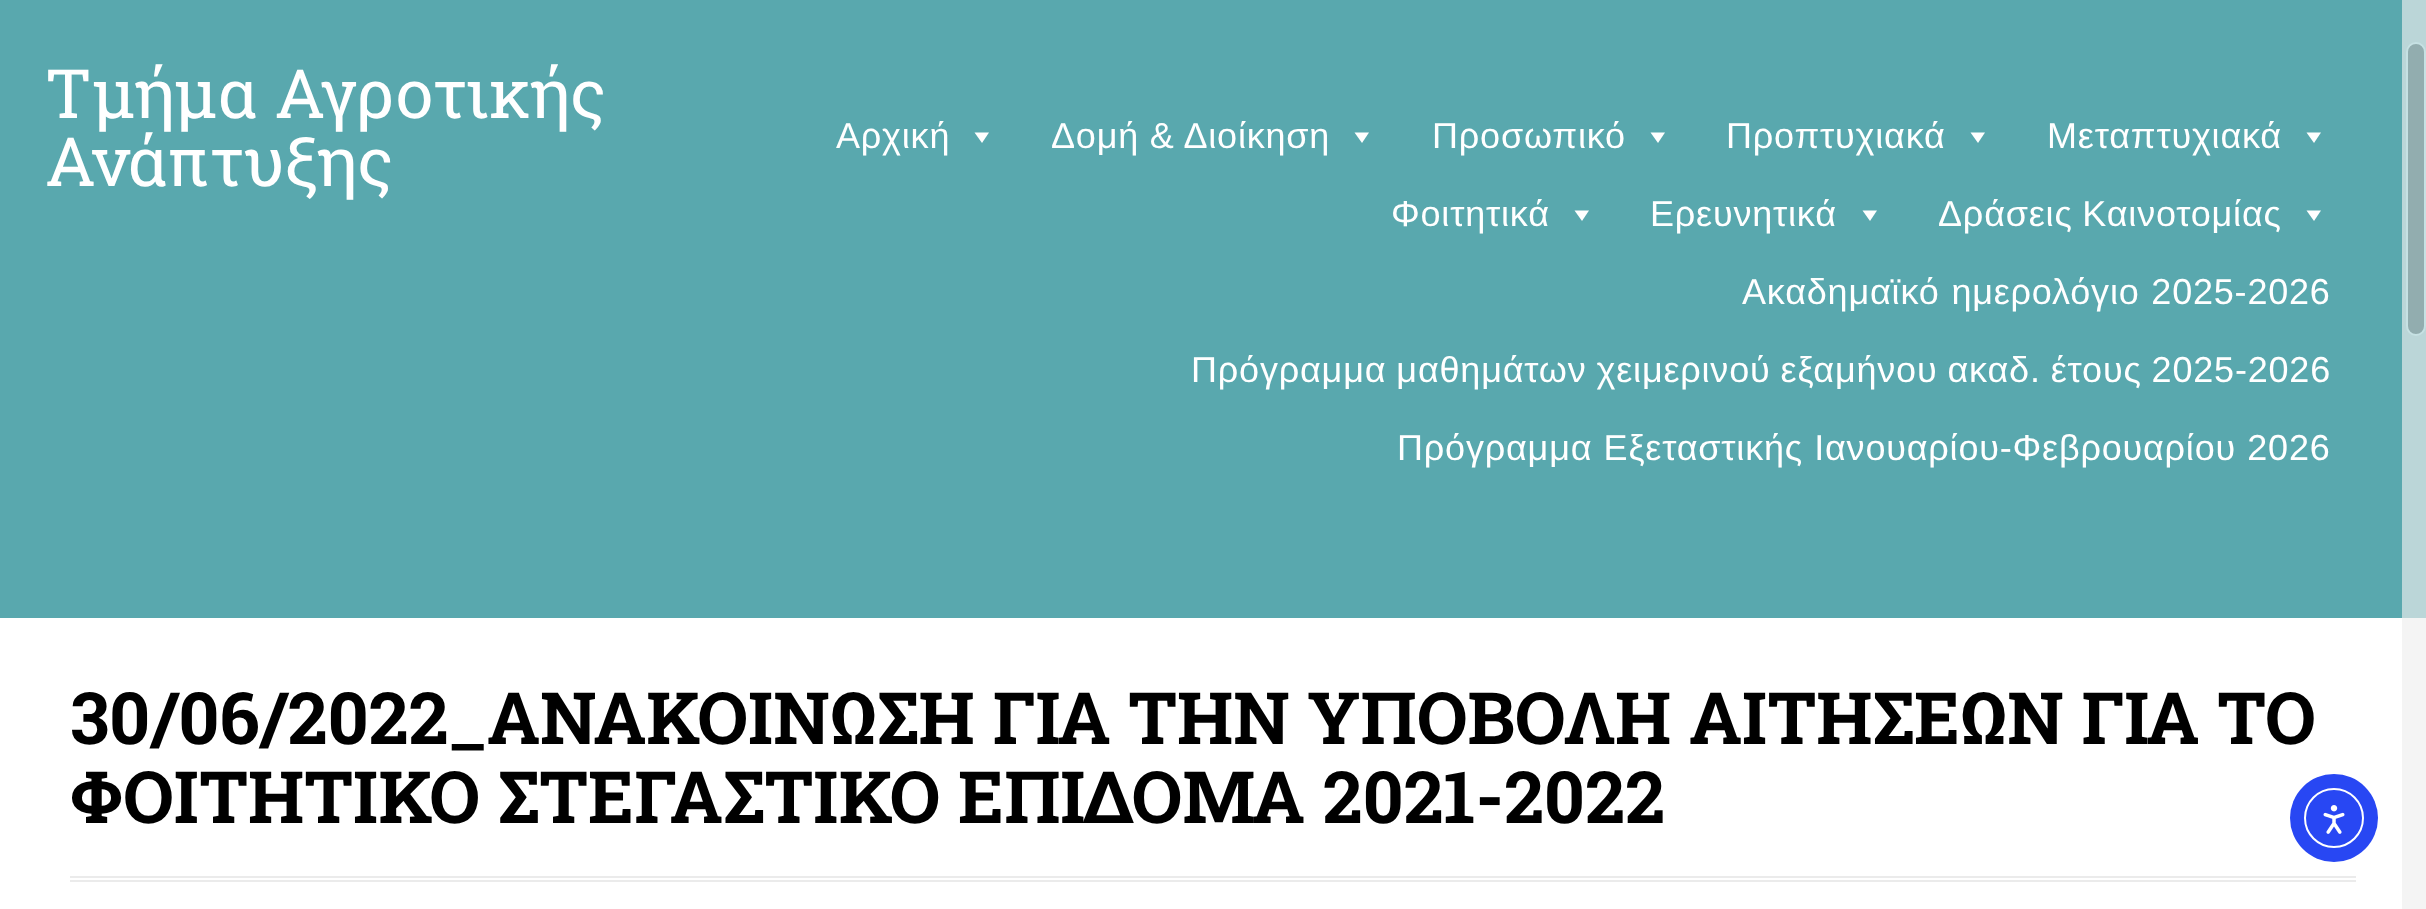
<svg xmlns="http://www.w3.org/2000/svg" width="2426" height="909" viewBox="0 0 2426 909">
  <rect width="100%" height="100%" fill="rgb(255,255,255)"/>
  <rect x="0" y="0" width="2426" height="618" fill="rgb(89,168,174)"/>
  <g font-family="Roboto Slab" font-size="68" fill="rgb(255,255,255)">
    <text>
      <tspan x="45" y="118">Τμήμα Αγροτικής</tspan>
      <tspan x="45" y="186">Ανάπτυξης</tspan>
    </text>
  </g>
  <text x="836" y="148" font-family="Liberation Sans" font-size="36" letter-spacing="0.8" fill="rgb(255,255,255)">Αρχική</text>
  <path d="M989 132.5L982 143L974.5 132.5Z" fill="rgb(255,255,255)"/>
  <text x="1051" y="148" font-family="Liberation Sans" font-size="36" letter-spacing="0.8" fill="rgb(255,255,255)">Δομή &amp; Διοίκηση</text>
  <path d="M1369 132.5L1362 143L1354.5 132.5Z" fill="rgb(255,255,255)"/>
  <text x="1432" y="148" font-family="Liberation Sans" font-size="36" letter-spacing="0.8" fill="rgb(255,255,255)">Προσωπικό</text>
  <path d="M1665 132.5L1658 143L1650.5 132.5Z" fill="rgb(255,255,255)"/>
  <text x="1726" y="148" font-family="Liberation Sans" font-size="36" letter-spacing="0.8" fill="rgb(255,255,255)">Προπτυχιακά</text>
  <path d="M1985 132.5L1978 143L1970.5 132.5Z" fill="rgb(255,255,255)"/>
  <text x="2047" y="148" font-family="Liberation Sans" font-size="36" letter-spacing="0.8" fill="rgb(255,255,255)">Μεταπτυχιακά</text>
  <path d="M2321 132.5L2314 143L2306.5 132.5Z" fill="rgb(255,255,255)"/>
  <text x="1391" y="226" font-family="Liberation Sans" font-size="36" letter-spacing="0.8" fill="rgb(255,255,255)">Φοιτητικά</text>
  <path d="M1589 210.5L1582 221L1574.5 210.5Z" fill="rgb(255,255,255)"/>
  <text x="1650" y="226" font-family="Liberation Sans" font-size="36" letter-spacing="0.8" fill="rgb(255,255,255)">Ερευνητικά</text>
  <path d="M1877 210.5L1870 221L1862.5 210.5Z" fill="rgb(255,255,255)"/>
  <text x="1938" y="226" word-spacing="-1" font-family="Liberation Sans" font-size="36" letter-spacing="0.8" fill="rgb(255,255,255)">Δράσεις Καινοτομίας</text>
  <path d="M2321 210.5L2314 221L2306.5 210.5Z" fill="rgb(255,255,255)"/>
  <g font-family="Liberation Sans" font-size="36" letter-spacing="0.8" fill="rgb(255,255,255)">
    <text x="1742" y="304" word-spacing="1">Ακαδημαϊκό ημερολόγιο 2025-2026</text>
    <text x="1191" y="382" word-spacing="-0.75">Πρόγραμμα μαθημάτων χειμερινού εξαμήνου ακαδ. έτους 2025-2026</text>
    <text x="1397" y="460" word-spacing="0.5">Πρόγραμμα Εξεταστικής Ιανουαρίου-Φεβρουαρίου 2026</text>
  </g>
  <g font-family="Roboto Slab" font-size="72" font-weight="bold" fill="rgb(0,0,0)">
    <text>
      <tspan x="70" y="744">30/06/2022_ΑΝΑΚΟΙΝΩΣΗ ΓΙΑ ΤΗΝ ΥΠΟΒΟΛΗ ΑΙΤΗΣΕΩΝ ΓΙΑ ΤΟ</tspan>
      <tspan x="70" y="823">ΦΟΙΤΗΤΙΚΟ ΣΤΕΓΑΣΤΙΚΟ ΕΠΙΔΟΜΑ 2021-2022</tspan>
    </text>
  </g>
  <rect x="70" y="876" width="2286" height="2" fill="rgb(235,235,235)"/>
  <rect x="70" y="880" width="2286" height="2" fill="rgb(235,235,235)"/>
  <circle cx="2334" cy="818" r="44" fill="rgb(40,71,243)"/>
  <circle cx="2334" cy="818" r="29" fill="none" stroke="rgb(255,255,255)" stroke-width="2"/>
  <image x="2323" y="805" width="22" height="29" href="pic1.png"/>
  <rect x="2402" y="0" width="24" height="909" fill="rgba(238,238,238,0.66)"/>
  <rect x="2407" y="43" width="18" height="292" rx="9" fill="rgb(146,173,175)" stroke="rgb(198,225,227)" stroke-width="2"/>
</svg>
